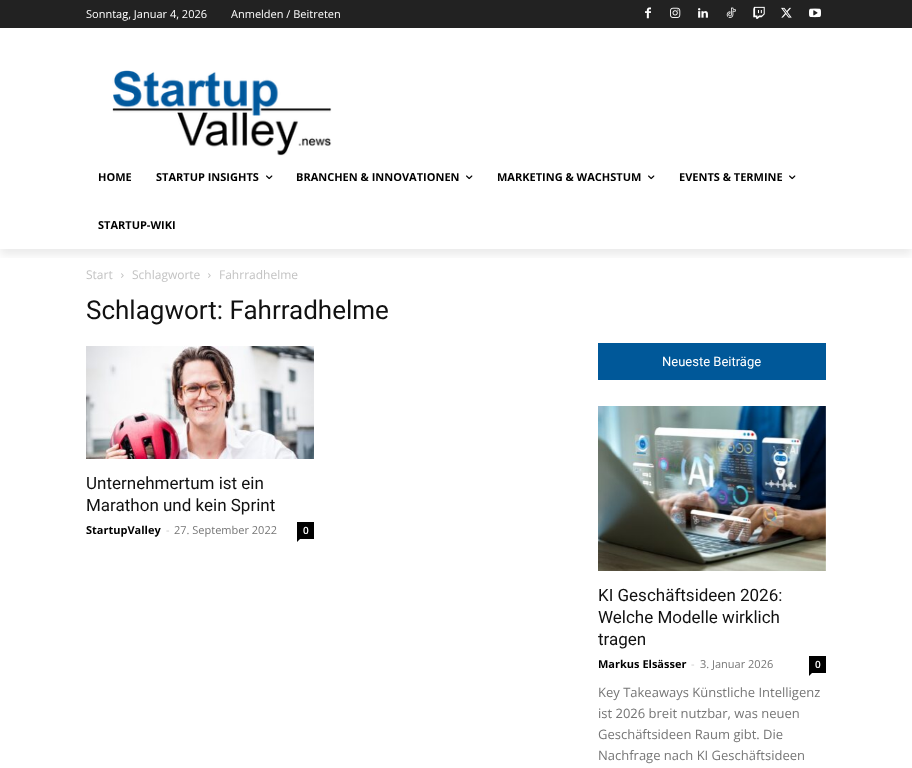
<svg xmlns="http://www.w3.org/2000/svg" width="912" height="768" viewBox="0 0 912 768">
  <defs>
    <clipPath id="clip1"><rect x="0" y="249" width="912" height="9"/></clipPath>
  </defs>
  <rect width="100%" height="100%" fill="rgb(255,255,255)"/>
  <rect x="0" y="0" width="912" height="28" fill="rgb(34,34,34)"/>
  <image x="645" y="7" width="6" height="12" href="pic1.png"/>
  <image x="670" y="7" width="11" height="11" href="pic2.png"/>
  <image x="698" y="8" width="10" height="10" href="pic3.png"/>
  <image x="726" y="7" width="10" height="11" href="pic4.png"/>
  <image x="753" y="6" width="12" height="13" href="pic5.png"/>
  <image x="781" y="7" width="11" height="11" href="pic6.png"/>
  <image x="809" y="8" width="12" height="10" href="pic7.png"/>
  <image x="112" y="70" width="220" height="86" href="pic8.png"/>
  <g clip-path="url(#clip1)">
    <rect x="0" y="6" width="912" height="249" fill="rgba(0,0,0,0.08)" filter="blur(4px)"/>
  </g>
  <g font-family="Open Sans" font-size="11" fill="rgb(255,255,255)">
    <text x="86" y="18">Sonntag, Januar 4, 2026</text>
    <text x="231" y="18">Anmelden / Beitreten</text>
  </g>
  <g font-family="Open Sans" font-size="11" font-weight="bold" fill="rgb(0,0,0)">
    <text x="98" y="181">HOME</text>
    <text x="156" y="181">STARTUP INSIGHTS</text>
  </g>
  <image x="266" y="175" width="7" height="5" href="pic9.png"/>
  <text x="296" y="181" font-family="Open Sans" font-size="11" font-weight="bold" fill="rgb(0,0,0)">BRANCHEN &amp; INNOVATIONEN</text>
  <image x="466" y="175" width="7" height="5" href="pic9.png"/>
  <text x="497" y="181" font-family="Open Sans" font-size="11" font-weight="bold" fill="rgb(0,0,0)">MARKETING &amp; WACHSTUM</text>
  <image x="648" y="175" width="7" height="5" href="pic9.png"/>
  <text x="679" y="181" font-family="Open Sans" font-size="11" font-weight="bold" fill="rgb(0,0,0)">EVENTS &amp; TERMINE</text>
  <image x="789" y="175" width="7" height="5" href="pic9.png"/>
  <text x="98" y="229" font-family="Open Sans" font-size="11" font-weight="bold" fill="rgb(0,0,0)">STARTUP-WIKI</text>
  <text x="86" y="279" font-family="Open Sans" font-size="12" fill="rgb(195,195,195)">Start</text>
  <image x="121" y="273" width="3" height="5" href="pic10.png"/>
  <text x="132" y="279" font-family="Open Sans" font-size="12" fill="rgb(195,195,195)">Schlagworte</text>
  <image x="208" y="273" width="3" height="5" href="pic10.png"/>
  <text x="219" y="279" font-family="Open Sans" font-size="12" fill="rgb(195,195,195)">Fahrradhelme</text>
  <text x="86" y="319" font-family="Roboto" font-size="26" fill="rgb(17,17,17)">Schlagwort: Fahrradhelme</text>
  <image x="86" y="346" width="228" height="113" href="pic11.png"/>
  <g font-family="Roboto" font-size="17" fill="rgb(17,17,17)">
    <text>
      <tspan x="86" y="489">Unternehmertum ist ein</tspan>
      <tspan x="86" y="511">Marathon und kein Sprint</tspan>
    </text>
  </g>
  <text x="86" y="534" font-family="Open Sans" font-size="11" font-weight="bold" fill="rgb(0,0,0)">StartupValley</text>
  <text x="166" y="534" font-family="Open Sans" font-size="11" fill="rgb(204,204,204)">-</text>
  <text x="174" y="534" font-family="Open Sans" font-size="11" fill="rgb(118,118,118)">27. September 2022</text>
  <rect x="297" y="522" width="17" height="17" fill="rgb(0,0,0)"/>
  <text x="303" y="534" font-family="Open Sans" font-size="10" font-weight="600" fill="rgb(255,255,255)">0</text>
  <path d="M297 539H300L297 542Z" fill="rgb(0,0,0)"/>
  <rect x="598" y="343" width="228" height="37" fill="rgb(0,88,153)"/>
  <text x="662" y="366" font-family="Roboto" font-size="13" fill="rgb(255,255,255)">Neueste Beiträge</text>
  <image x="598" y="406" width="228" height="165" href="pic12.png"/>
  <g font-family="Roboto" font-size="17" fill="rgb(17,17,17)">
    <text>
      <tspan x="598" y="601">KI Geschäftsideen 2026:</tspan>
      <tspan x="598" y="623">Welche Modelle wirklich</tspan>
      <tspan x="598" y="645">tragen</tspan>
    </text>
  </g>
  <text x="598" y="668" font-family="Open Sans" font-size="11" font-weight="bold" fill="rgb(0,0,0)">Markus Elsässer</text>
  <text x="691" y="668" font-family="Open Sans" font-size="11" fill="rgb(204,204,204)">-</text>
  <text x="700" y="668" font-family="Open Sans" font-size="11" fill="rgb(118,118,118)">3. Januar 2026</text>
  <rect x="809" y="656" width="17" height="17" fill="rgb(0,0,0)"/>
  <text x="815" y="668" font-family="Open Sans" font-size="10" font-weight="600" fill="rgb(255,255,255)">0</text>
  <path d="M809 673H812L809 676Z" fill="rgb(0,0,0)"/>
  <g font-family="Open Sans" font-size="13" fill="rgb(118,118,118)">
    <text>
      <tspan x="598" y="697">Key Takeaways Künstliche Intelligenz</tspan>
      <tspan x="598" y="718">ist 2026 breit nutzbar, was neuen</tspan>
      <tspan x="598" y="739">Geschäftsideen Raum gibt. Die</tspan>
      <tspan x="598" y="760">Nachfrage nach KI Geschäftsideen</tspan>
    </text>
  </g>
</svg>
